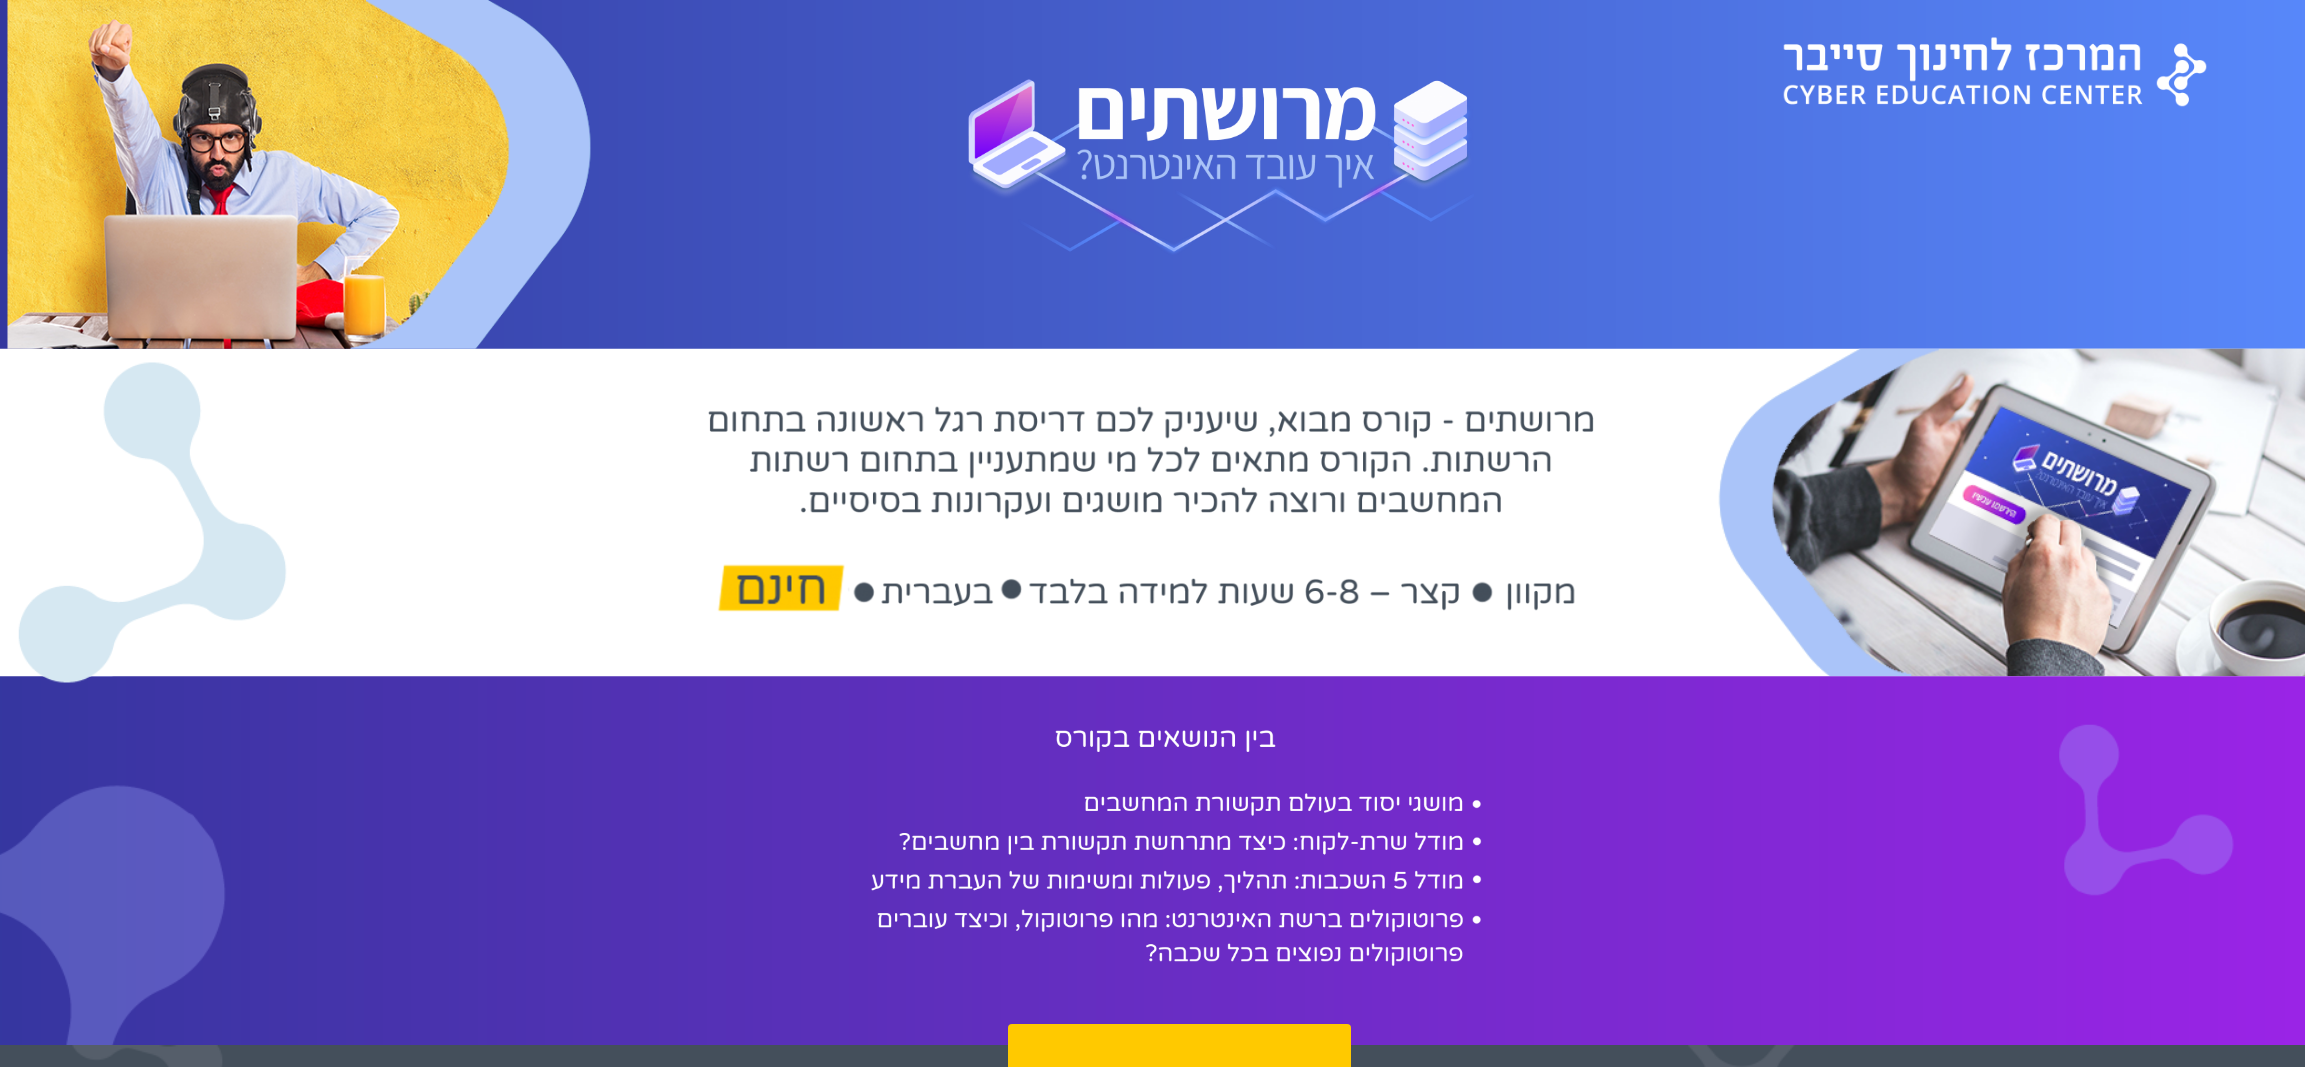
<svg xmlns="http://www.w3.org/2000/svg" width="2305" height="1067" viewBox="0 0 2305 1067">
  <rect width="100%" height="100%" fill="rgb(255,255,255)"/>
  <image x="0" y="0" width="2305" height="349" href="pic1.png"/>
  <image x="7" y="0" width="584" height="349" href="pic2.png"/>
  <image x="1783" y="37" width="424" height="70" href="pic3.png"/>
  <image x="968" y="79" width="506" height="176" href="pic4.png"/>
  <image x="1718" y="348" width="587" height="329" href="pic7.png"/>
  <image x="0" y="676" width="2305" height="369" href="pic8.png"/>
  <image x="18" y="362" width="269" height="321" href="pic5.png"/>
  <image x="708" y="406" width="886" height="206" href="pic6.png"/>
  <image x="871" y="730" width="611" height="236" href="pic9.png"/>
  <image x="0" y="1045" width="2305" height="22" href="pic10.png"/>
  <rect x="1008" y="1024" width="343" height="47" rx="4" fill="rgb(255,201,0)"/>
</svg>
